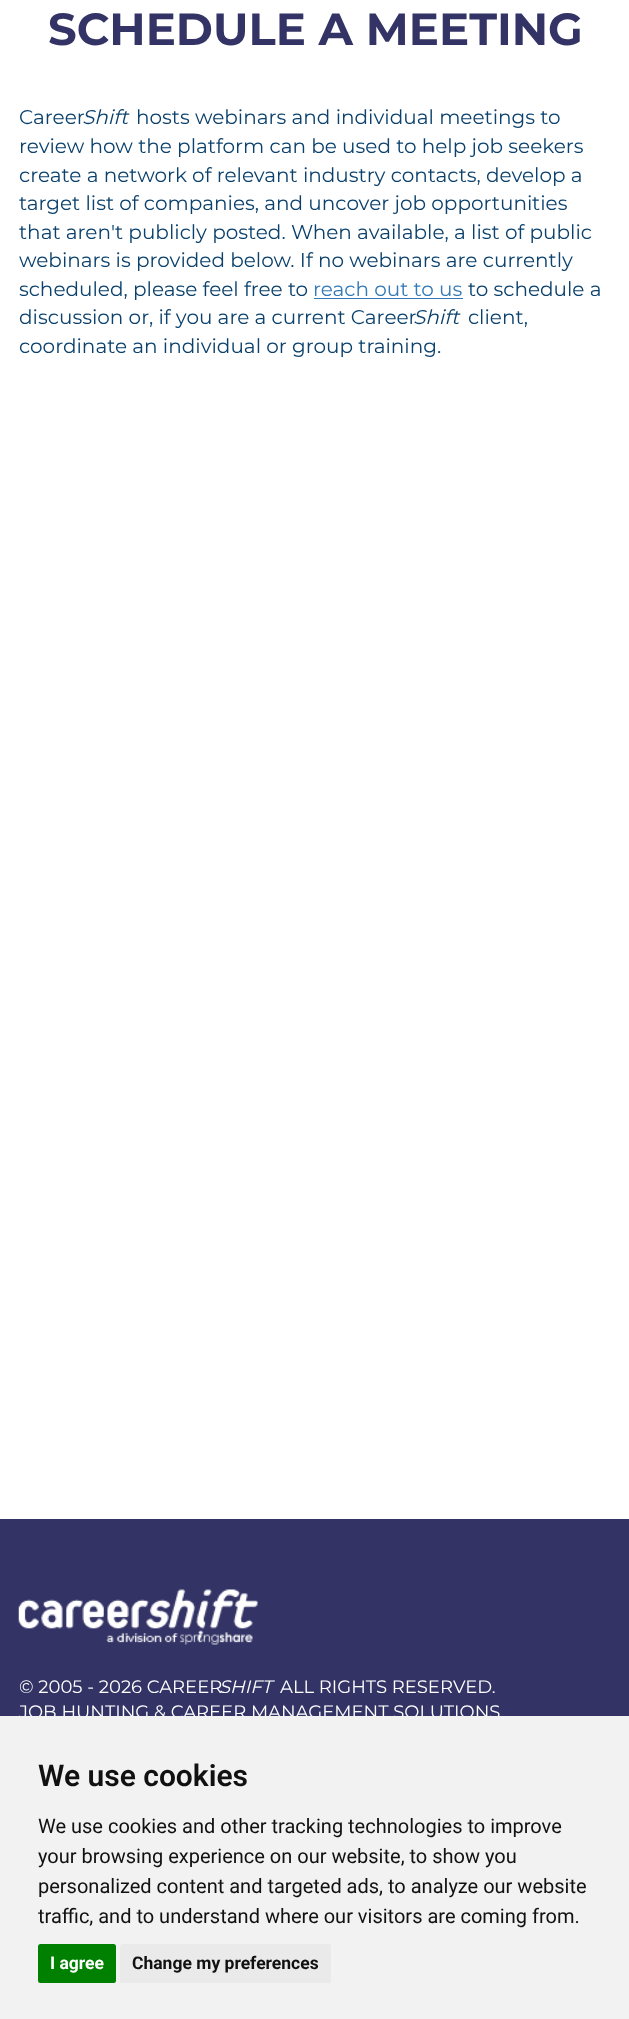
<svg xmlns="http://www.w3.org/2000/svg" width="629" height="2019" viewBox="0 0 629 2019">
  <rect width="100%" height="100%" fill="rgb(255,255,255)"/>
  <text x="48" y="45" font-family="Montserrat" font-size="45" font-weight="bold" fill="rgb(51,51,102)">SCHEDULE A MEETING</text>
  <text x="19" y="124" font-family="Montserrat" font-size="20" fill="rgb(11,65,108)">Career</text>
  <text x="82" y="124" font-family="Montserrat" font-size="20" font-style="italic" fill="rgb(11,65,108)">Shift</text>
  <g font-family="Montserrat" font-size="20" fill="rgb(11,65,108)">
    <text x="136" y="124">hosts webinars and individual meetings to</text>
    <text>
      <tspan x="19" y="153">review how the platform can be used to help job seekers</tspan>
      <tspan x="19" y="182">create a network of relevant industry contacts, develop a</tspan>
      <tspan x="19" y="210">target list of companies, and uncover job opportunities</tspan>
      <tspan x="19" y="239">that aren't publicly posted. When available, a list of public</tspan>
      <tspan x="19" y="267">webinars is provided below. If no webinars are currently</tspan>
      <tspan x="19" y="296">scheduled, please feel free to</tspan>
    </text>
  </g>
  <text x="313" y="296" font-family="Montserrat" font-size="20" fill="rgb(51,122,183)">reach out to us</text>
  <rect x="314" y="298" width="149" height="1" fill="rgb(51,122,183)"/>
  <g font-family="Montserrat" font-size="20" fill="rgb(11,65,108)">
    <text x="468" y="296">to schedule a</text>
    <text x="19" y="324">discussion or, if you are a current Career</text>
  </g>
  <text x="413" y="324" font-family="Montserrat" font-size="20" font-style="italic" fill="rgb(11,65,108)">Shift</text>
  <g font-family="Montserrat" font-size="20" fill="rgb(11,65,108)">
    <text x="468" y="324">client,</text>
    <text x="19" y="353">coordinate an individual or group training.</text>
  </g>
  <rect x="0" y="1519" width="629" height="197" fill="rgb(51,51,102)"/>
  <image x="18" y="1589" width="240" height="56" href="pic1.png"/>
  <text x="19" y="1693" font-family="Montserrat" font-size="18" fill="rgb(255,255,255)">© 2005 - 2026 CAREER</text>
  <text x="219" y="1693" font-family="Montserrat" font-size="18" font-style="italic" fill="rgb(255,255,255)">SHIFT</text>
  <g font-family="Montserrat" font-size="18" fill="rgb(255,255,255)">
    <text x="280" y="1693">ALL RIGHTS RESERVED.</text>
    <text x="19" y="1718">JOB HUNTING &amp; CAREER MANAGEMENT SOLUTIONS</text>
  </g>
  <rect x="0" y="1716" width="629" height="303" fill="rgb(242,242,242)"/>
  <text x="38" y="1786" font-family="Roboto" font-size="30" font-weight="600" fill="rgb(17,17,17)">We use cookies</text>
  <g font-family="Roboto" font-size="20" fill="rgb(17,17,17)">
    <text>
      <tspan x="38" y="1833">We use cookies and other tracking technologies to improve</tspan>
      <tspan x="38" y="1863">your browsing experience on our website, to show you</tspan>
      <tspan x="38" y="1893">personalized content and targeted ads, to analyze our website</tspan>
      <tspan x="38" y="1923">traffic, and to understand where our visitors are coming from.</tspan>
    </text>
  </g>
  <rect x="38" y="1944" width="78" height="39" rx="2.5" fill="rgb(0,128,0)"/>
  <text x="50" y="1969" font-family="Roboto" font-size="17.5" font-weight="bold" fill="rgb(255,255,255)">I agree</text>
  <rect x="120" y="1944" width="211" height="39" rx="2.5" fill="rgb(234,234,234)"/>
  <text x="132" y="1969" font-family="Roboto" font-size="17.5" font-weight="bold" fill="rgb(17,17,17)">Change my preferences</text>
</svg>
